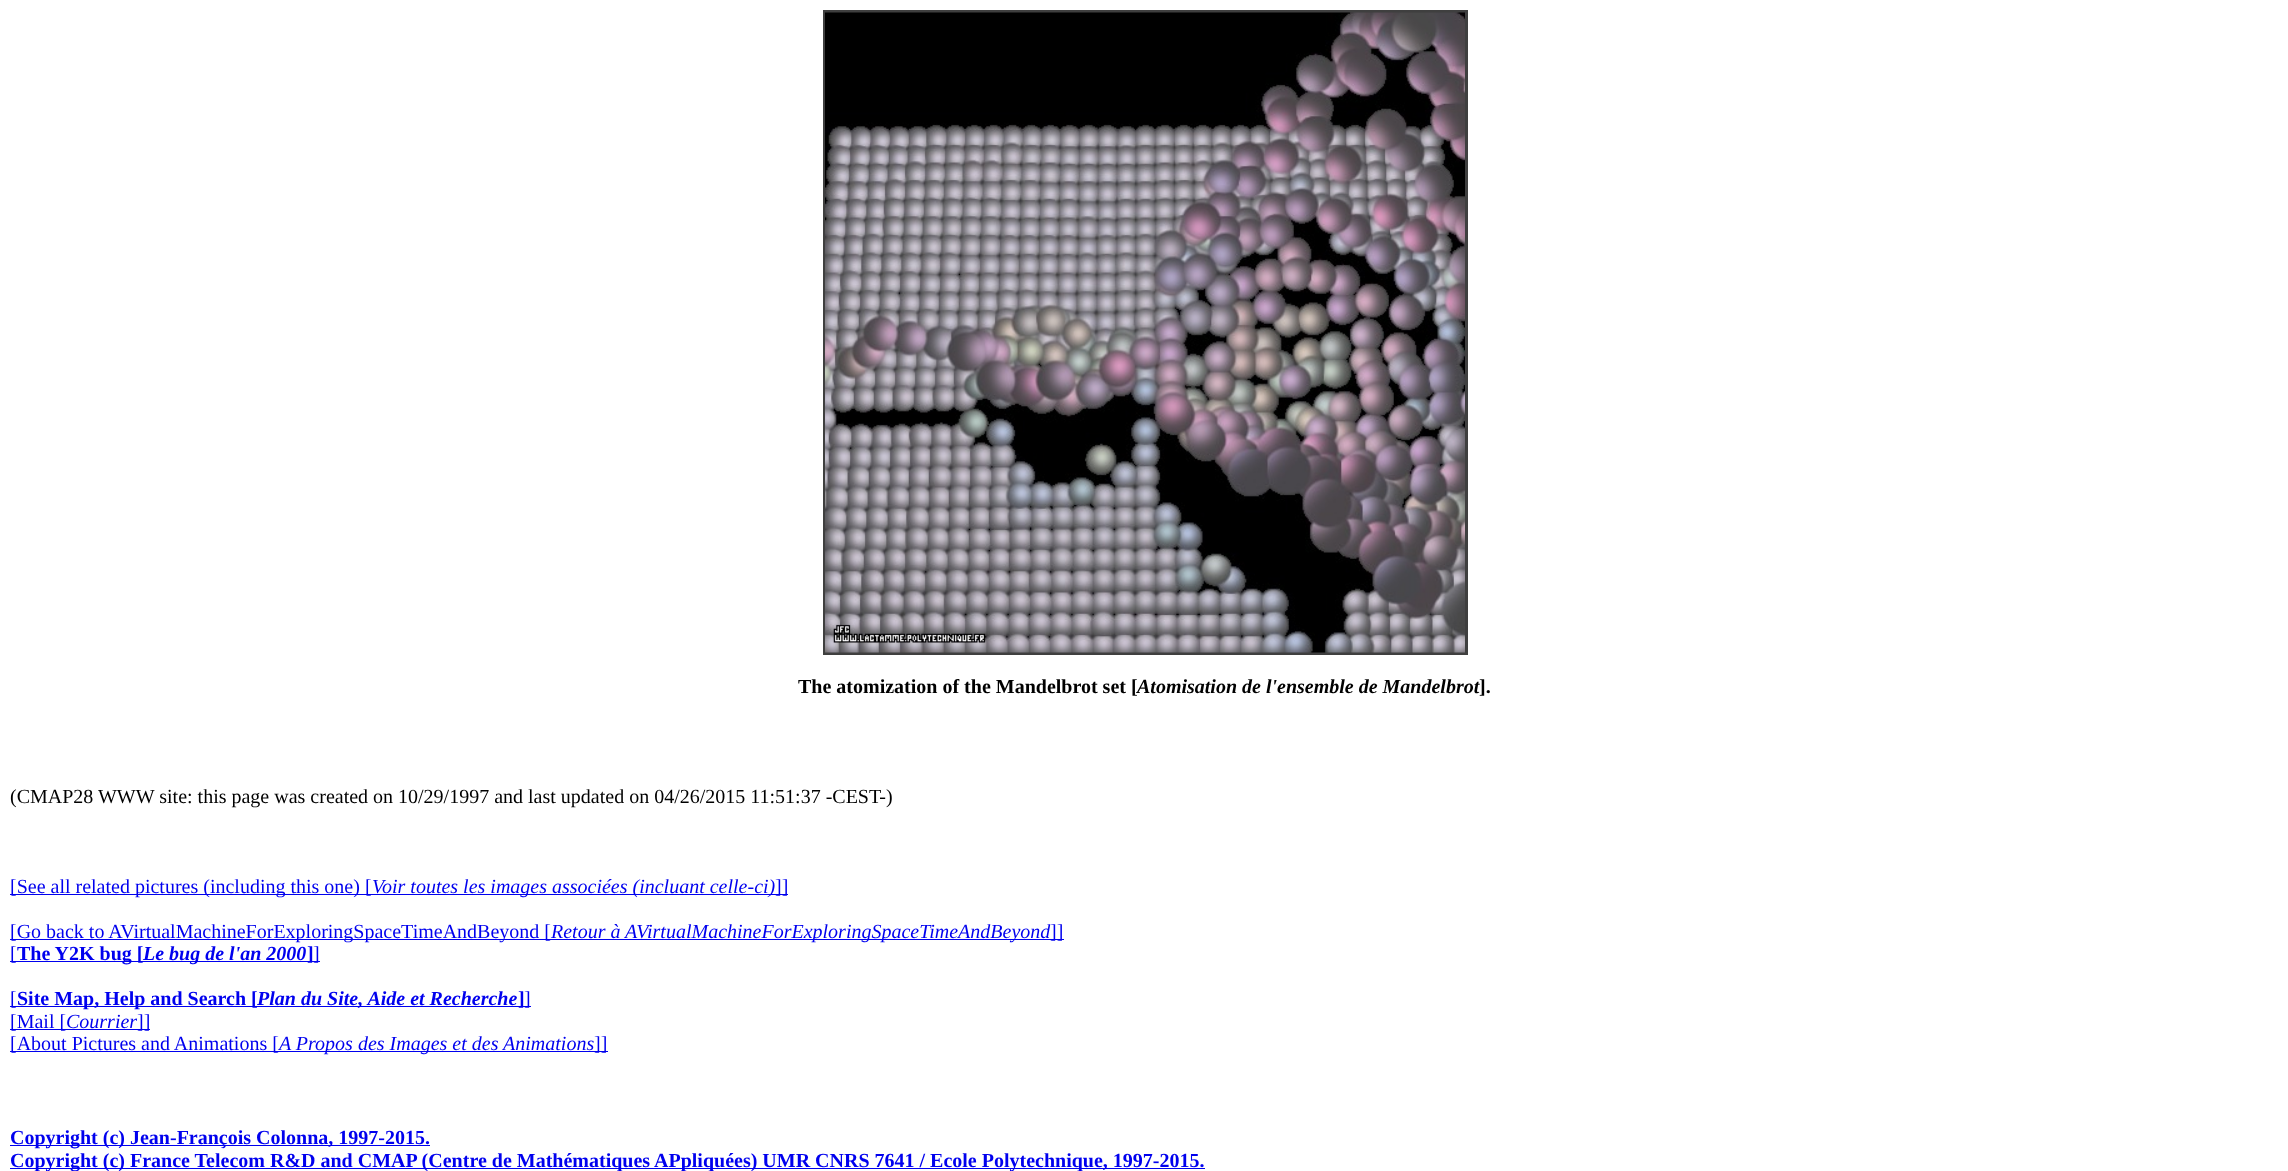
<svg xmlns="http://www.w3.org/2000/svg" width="2288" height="1171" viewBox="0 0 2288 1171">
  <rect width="100%" height="100%" fill="rgb(255,255,255)"/>
  <rect x="824.5" y="11.5" width="642" height="642" fill="none" stroke="rgb(63,63,63)" stroke-width="3"/>
  <image x="825" y="12" width="640" height="641" href="pic1.png"/>
  <text x="798" y="693" font-family="Liberation Serif" font-size="20" font-weight="bold" fill="rgb(0,0,0)">The atomization of the Mandelbrot set [</text>
  <text x="1137" y="693" font-family="Liberation Serif" font-size="20" font-weight="bold" font-style="italic" fill="rgb(0,0,0)">Atomisation de l'ensemble de Mandelbrot</text>
  <text x="1479" y="693" font-family="Liberation Serif" font-size="20" font-weight="bold" fill="rgb(0,0,0)">].</text>
  <text x="10" y="803" font-family="Liberation Serif" font-size="20" fill="rgb(0,0,0)">(CMAP28 WWW site: this page was created on 10/29/1997 and last updated on 04/26/2015 11:51:37 -CEST-)</text>
  <rect x="10" y="894" width="778" height="1" fill="rgb(0,0,238)"/>
  <text x="10" y="893" font-family="Liberation Serif" font-size="20" fill="rgb(0,0,238)">[See all related pictures (including this one) [</text>
  <text x="372" y="893" font-family="Liberation Serif" font-size="20" font-style="italic" fill="rgb(0,0,238)">Voir toutes les images associées (incluant celle-ci)</text>
  <text x="775" y="893" font-family="Liberation Serif" font-size="20" fill="rgb(0,0,238)">]]</text>
  <rect x="10" y="939" width="1040" height="1" fill="rgb(0,0,238)"/>
  <text x="10" y="938" font-family="Liberation Serif" font-size="20" fill="rgb(0,0,238)">[Go back to AVirtualMachineForExploringSpaceTimeAndBeyond [</text>
  <text x="551" y="938" font-family="Liberation Serif" font-size="20" font-style="italic" fill="rgb(0,0,238)">Retour à AVirtualMachineForExploringSpaceTimeAndBeyond</text>
  <rect x="1050" y="939" width="14" height="1" fill="rgb(0,0,238)"/>
  <text x="1050" y="938" font-family="Liberation Serif" font-size="20" fill="rgb(0,0,238)">]]</text>
  <rect x="10" y="961" width="296" height="1" fill="rgb(0,0,238)"/>
  <text x="10" y="960" font-family="Liberation Serif" font-size="20" fill="rgb(0,0,238)">[</text>
  <text x="17" y="960" font-family="Liberation Serif" font-size="20" font-weight="bold" fill="rgb(0,0,238)">The Y2K bug [</text>
  <text x="143" y="960" font-family="Liberation Serif" font-size="20" font-weight="bold" font-style="italic" fill="rgb(0,0,238)">Le bug de l'an 2000</text>
  <rect x="306" y="961" width="14" height="1" fill="rgb(0,0,238)"/>
  <text x="307" y="960" font-family="Liberation Serif" font-size="20" font-weight="bold" fill="rgb(0,0,238)">]</text>
  <text x="313" y="960" font-family="Liberation Serif" font-size="20" fill="rgb(0,0,238)">]</text>
  <rect x="10" y="1006" width="521" height="1" fill="rgb(0,0,238)"/>
  <text x="10" y="1005" font-family="Liberation Serif" font-size="20" fill="rgb(0,0,238)">[</text>
  <text x="17" y="1005" font-family="Liberation Serif" font-size="20" font-weight="bold" fill="rgb(0,0,238)">Site Map, Help and Search [</text>
  <text x="257" y="1005" font-family="Liberation Serif" font-size="20" font-weight="bold" font-style="italic" fill="rgb(0,0,238)">Plan du Site, Aide et Recherche</text>
  <text x="518" y="1005" font-family="Liberation Serif" font-size="20" font-weight="bold" fill="rgb(0,0,238)">]</text>
  <text x="524" y="1005" font-family="Liberation Serif" font-size="20" fill="rgb(0,0,238)">]</text>
  <rect x="10" y="1029" width="140" height="1" fill="rgb(0,0,238)"/>
  <text x="10" y="1028" font-family="Liberation Serif" font-size="20" fill="rgb(0,0,238)">[Mail [</text>
  <text x="66" y="1028" font-family="Liberation Serif" font-size="20" font-style="italic" fill="rgb(0,0,238)">Courrier</text>
  <text x="137" y="1028" font-family="Liberation Serif" font-size="20" fill="rgb(0,0,238)">]]</text>
  <rect x="10" y="1051" width="598" height="1" fill="rgb(0,0,238)"/>
  <text x="10" y="1050" font-family="Liberation Serif" font-size="20" fill="rgb(0,0,238)">[About Pictures and Animations [</text>
  <text x="279" y="1050" font-family="Liberation Serif" font-size="20" font-style="italic" fill="rgb(0,0,238)">A Propos des Images et des Animations</text>
  <text x="594" y="1050" font-family="Liberation Serif" font-size="20" fill="rgb(0,0,238)">]]</text>
  <rect x="10" y="1145" width="420" height="1" fill="rgb(0,0,238)"/>
  <text x="10" y="1144" font-family="Liberation Serif" font-size="20" font-weight="bold" fill="rgb(0,0,238)">Copyright (c) Jean-François Colonna, 1997-2015.</text>
  <rect x="10" y="1168" width="1195" height="1" fill="rgb(0,0,238)"/>
  <text x="10" y="1167" font-family="Liberation Serif" font-size="20" font-weight="bold" fill="rgb(0,0,238)">Copyright (c) France Telecom R&amp;D and CMAP (Centre de Mathématiques APpliquées) UMR CNRS 7641 / Ecole Polytechnique, 1997-2015.</text>
</svg>
